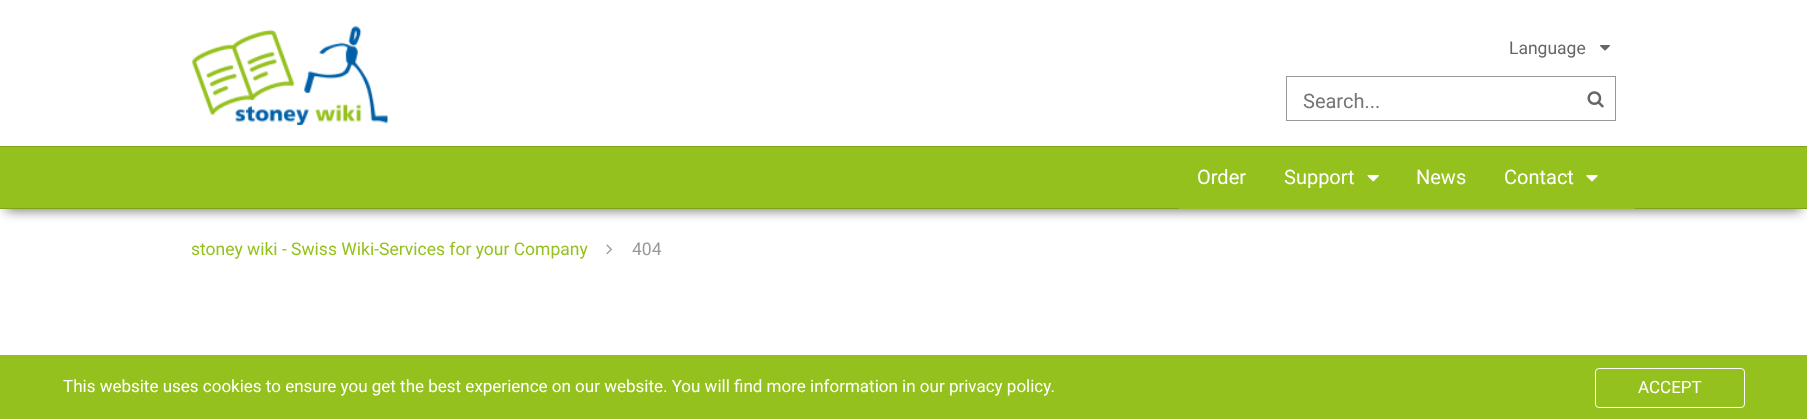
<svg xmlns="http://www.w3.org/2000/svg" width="1807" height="419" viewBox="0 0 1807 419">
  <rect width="100%" height="100%" fill="rgb(255,255,255)"/>
  <rect x="6" y="15" width="1795" height="196" fill="rgba(0,0,0,0.5)" filter="blur(6px)"/>
  <rect x="0" y="3" width="1807" height="143" fill="rgb(255,255,255)"/>
  <image x="191" y="26" width="197" height="99" href="pic1.png"/>
  <text x="1509" y="54" font-family="Roboto" font-size="17.5" fill="rgb(102,102,102)">Language</text>
  <image x="1600" y="45" width="10" height="6" href="pic2.png"/>
  <rect x="1286.5" y="76.5" width="329" height="44" fill="none" stroke="rgb(153,153,153)"/>
  <text x="1303" y="108" font-family="Roboto" font-size="20" fill="rgb(117,117,117)">Search...</text>
  <image x="1587" y="91" width="17" height="17" href="pic3.png"/>
  <rect x="0" y="147" width="1807" height="61" fill="rgb(149,193,30)"/>
  <rect x="0" y="146" width="1807" height="1" fill="rgb(127,164,26)"/>
  <rect x="0" y="208" width="1807" height="1" fill="rgb(127,164,26)"/>
  <rect x="1179" y="208" width="456" height="1" fill="rgb(149,193,30)"/>
  <g font-family="Roboto" font-size="20" fill="rgb(255,255,255)">
    <text x="1197" y="184">Order</text>
    <text x="1284" y="184">Support</text>
  </g>
  <image x="1367" y="175" width="12" height="7" href="pic4.png"/>
  <g font-family="Roboto" font-size="20" fill="rgb(255,255,255)">
    <text x="1416" y="184">News</text>
    <text x="1504" y="184">Contact</text>
  </g>
  <image x="1586" y="175" width="12" height="7" href="pic5.png"/>
  <text x="191" y="255" font-family="Roboto" font-size="17.5" fill="rgb(149,193,30)">stoney wiki - Swiss Wiki-Services for your Company</text>
  <image x="606" y="244" width="6" height="11" href="pic6.png"/>
  <text x="632" y="255" font-family="Roboto" font-size="17.5" fill="rgb(153,153,153)">404</text>
  <rect x="0" y="355" width="1807" height="64" fill="rgb(149,193,30)"/>
  <text x="63" y="392" font-family="Roboto" font-size="17" fill="rgb(255,255,255)">This website uses cookies to ensure you get the best experience on our website. You will find more information in our privacy policy.</text>
  <rect x="1595.5" y="368.5" width="149" height="39" rx="3.5" fill="none" stroke="rgb(255,255,255)"/>
  <text x="1638" y="393" font-family="Roboto" font-size="17" fill="rgb(255,255,255)">ACCEPT</text>
</svg>
